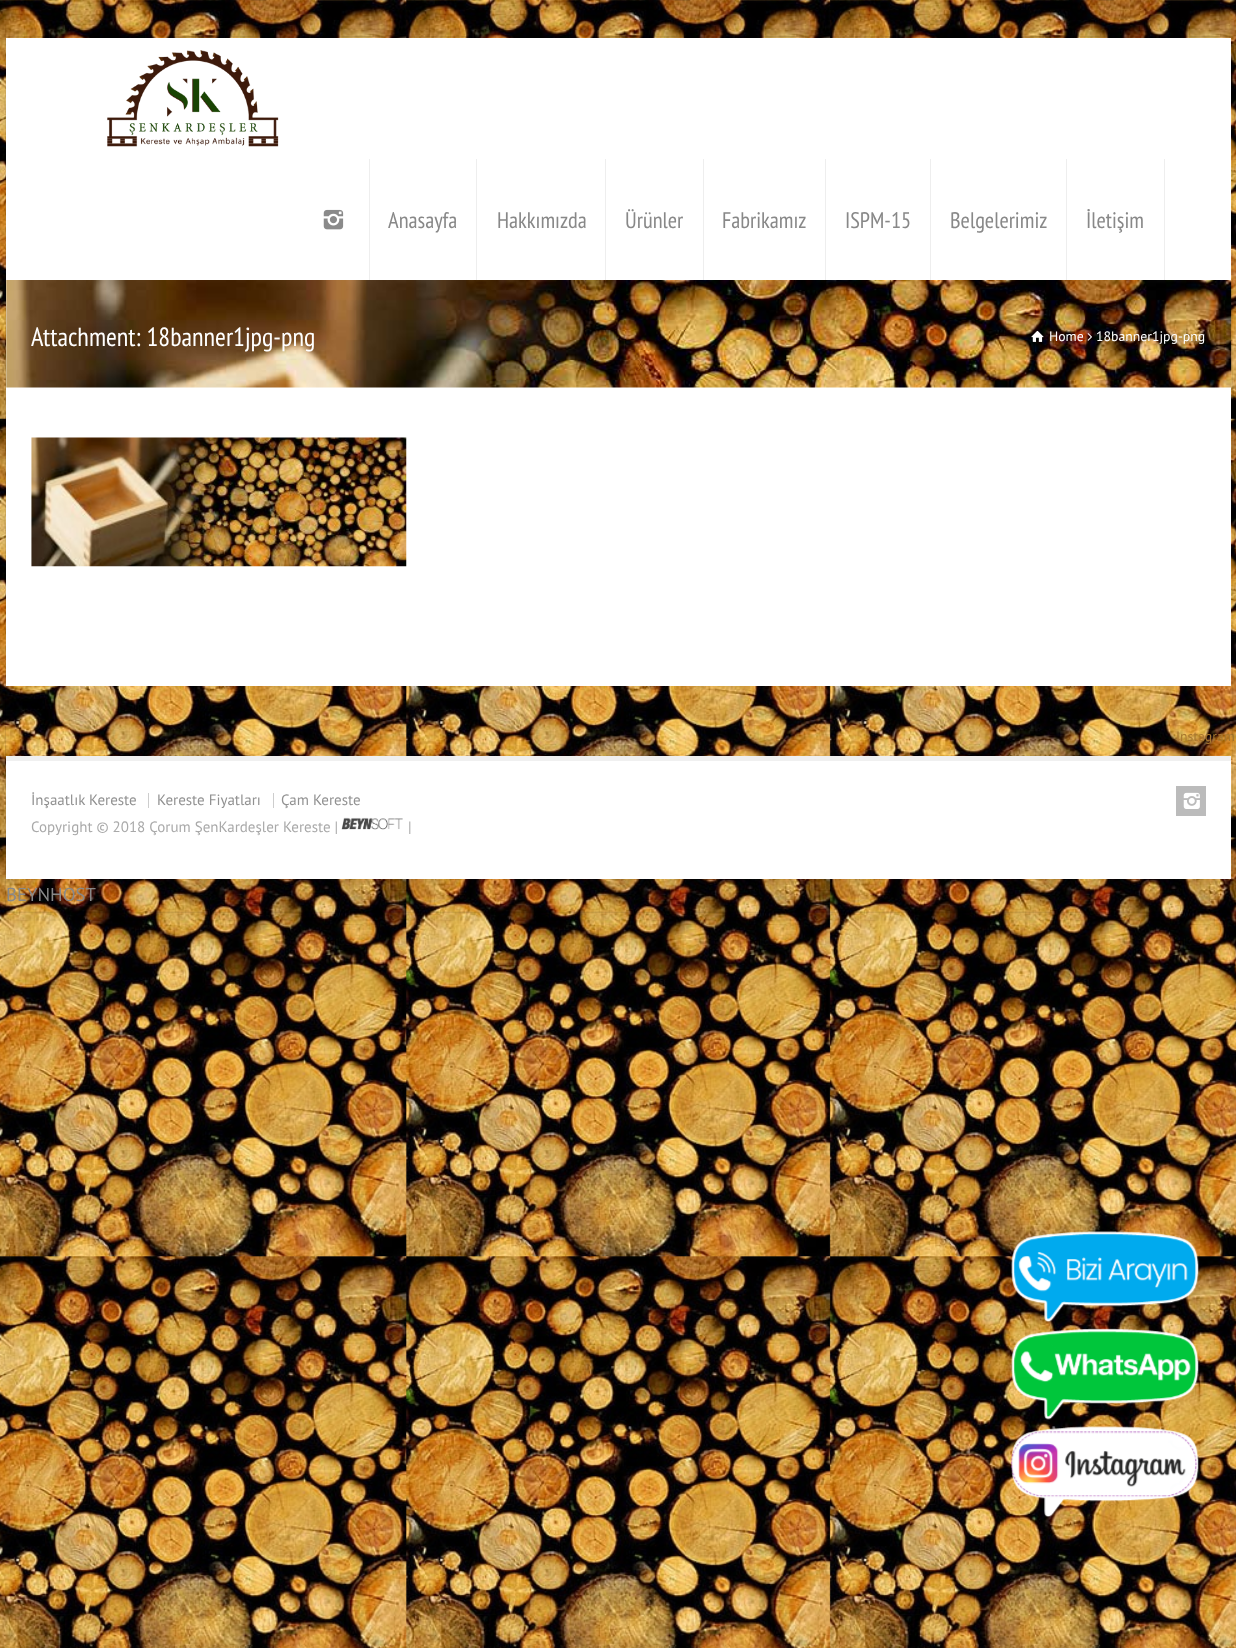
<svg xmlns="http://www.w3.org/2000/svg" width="1236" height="1648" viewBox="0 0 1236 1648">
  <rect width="100%" height="100%" fill="rgb(255,255,255)"/>
  <image x="0" y="0" width="1236" height="1648" href="pic1.png"/>
  <text x="1176" y="741" font-family="PT Sans" font-size="13.75" fill="rgb(169,120,47)">Instagram'</text>
  <rect x="5.5" y="36.5" width="1227" height="876" fill="none" stroke="rgba(4,4,4,0.06)"/>
  <rect x="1" y="33" width="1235" height="883" fill="none" stroke="rgba(0,0,0,0.03)" stroke-width="10"/>
  <rect x="6" y="38" width="1225" height="648" fill="rgb(255,255,255)"/>
  <image x="107" y="50" width="172" height="97" href="pic2.png"/>
  <rect x="369" y="159" width="1" height="121" fill="rgb(238,238,238)"/>
  <image x="323" y="209" width="21" height="21" href="pic3.png"/>
  <rect x="476" y="159" width="1" height="121" fill="rgb(238,238,238)"/>
  <text x="388" y="228" font-family="PT Sans Narrow" font-size="22.5" fill="rgb(136,136,136)">Anasayfa</text>
  <rect x="605" y="159" width="1" height="121" fill="rgb(238,238,238)"/>
  <text x="497" y="228" font-family="PT Sans Narrow" font-size="22.5" fill="rgb(136,136,136)">Hakkımızda</text>
  <rect x="703" y="159" width="1" height="121" fill="rgb(238,238,238)"/>
  <text x="625" y="228" font-family="PT Sans Narrow" font-size="22.5" fill="rgb(136,136,136)">Ürünler</text>
  <rect x="825" y="159" width="1" height="121" fill="rgb(238,238,238)"/>
  <text x="722" y="228" font-family="PT Sans Narrow" font-size="22.5" fill="rgb(136,136,136)">Fabrikamız</text>
  <rect x="930" y="159" width="1" height="121" fill="rgb(238,238,238)"/>
  <text x="845" y="228" font-family="PT Sans Narrow" font-size="22.5" fill="rgb(136,136,136)">ISPM-15</text>
  <rect x="1066" y="159" width="1" height="121" fill="rgb(238,238,238)"/>
  <text x="950" y="228" font-family="PT Sans Narrow" font-size="22.5" fill="rgb(136,136,136)">Belgelerimiz</text>
  <rect x="1164" y="159" width="1" height="121" fill="rgb(238,238,238)"/>
  <text x="1086" y="228" font-family="PT Sans Narrow" font-size="22.5" fill="rgb(136,136,136)">İletişim</text>
  <image x="6" y="280" width="1226" height="108" href="pic4.png"/>
  <text x="31" y="346" font-family="PT Sans Narrow" font-size="26.25" fill="rgb(255,255,255)">Attachment: 18banner1jpg-png</text>
  <image x="1031" y="330" width="13" height="12" href="pic5.png"/>
  <text x="1049" y="341" font-family="PT Sans" font-size="13.75" fill="rgb(255,255,255)">Home</text>
  <image x="1087" y="333" width="5" height="8" href="pic6.png"/>
  <text x="1096" y="341" font-family="PT Sans" font-size="13.75" fill="rgb(255,255,255)">18banner1jpg-png</text>
  <image x="31" y="437" width="376" height="130" href="pic7.png"/>
  <rect x="6" y="761" width="1225" height="118" fill="rgb(255,255,255)"/>
  <rect x="6" y="756" width="1225" height="5" fill="rgb(240,240,240)"/>
  <rect x="1176" y="786" width="30" height="30" fill="rgb(187,187,187)"/>
  <image x="1183" y="792" width="17" height="17" href="pic8.png"/>
  <text x="31" y="805" font-family="PT Sans" font-size="15" fill="rgb(145,145,145)">İnşaatlık Kereste</text>
  <rect x="148" y="793" width="1" height="15" fill="rgb(205,205,205)"/>
  <text x="157" y="805" font-family="PT Sans" font-size="15" fill="rgb(145,145,145)">Kereste Fiyatları</text>
  <rect x="273" y="793" width="1" height="15" fill="rgb(205,205,205)"/>
  <text x="281" y="805" font-family="PT Sans" font-size="15" fill="rgb(145,145,145)">Çam Kereste</text>
  <text x="31" y="832" font-family="PT Sans" font-size="15" fill="rgb(169,169,169)">Copyright © 2018 Çorum ŞenKardeşler Kereste |</text>
  <image x="341" y="817" width="62" height="13" href="pic9.png"/>
  <text x="408" y="832" font-family="PT Sans" font-size="15" fill="rgb(169,169,169)">|</text>
  <text x="6" y="901" font-family="PT Sans" font-size="18.75" fill="rgb(136,136,136)">BEYNHOST</text>
  <image x="1011" y="1231" width="188" height="92" href="pic10.png"/>
  <image x="1011" y="1328" width="188" height="92" href="pic11.png"/>
  <image x="1011" y="1426" width="188" height="92" href="pic12.png"/>
</svg>
